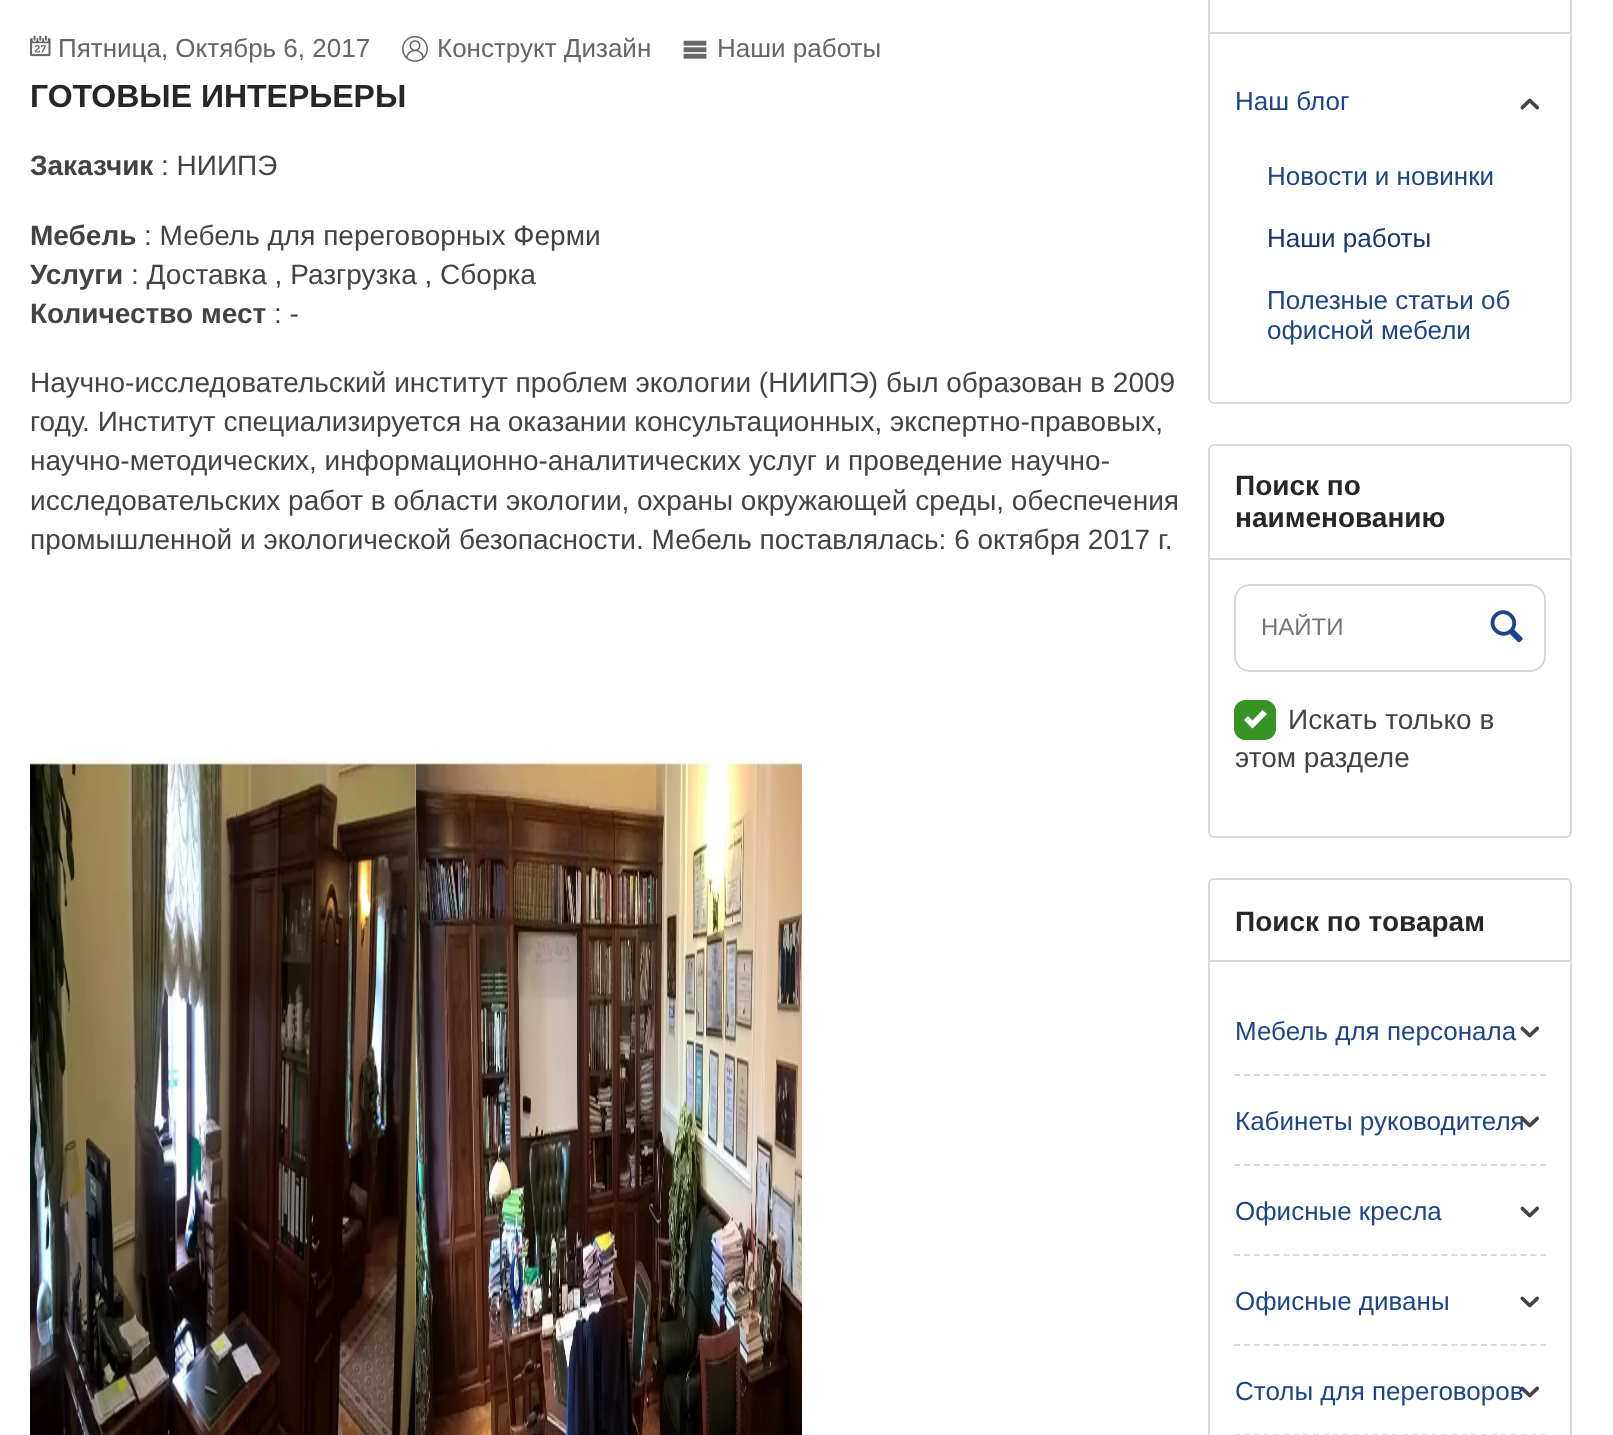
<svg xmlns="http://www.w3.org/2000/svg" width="1613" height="1435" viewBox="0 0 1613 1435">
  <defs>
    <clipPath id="clip1"><rect x="1260" y="614" width="224" height="28"/></clipPath>
  </defs>
  <rect width="100%" height="100%" fill="rgb(255,255,255)"/>
  <image x="30" y="35" width="21" height="22" href="pic1.png"/>
  <text x="58" y="57" font-family="Liberation Sans" font-size="26" fill="rgb(102,102,102)">Пятница, Октябрь 6, 2017</text>
  <image x="402" y="35" width="26" height="27" href="pic2.png"/>
  <text x="437" y="57" font-family="Liberation Sans" font-size="26" fill="rgb(102,102,102)">Конструкт Дизайн</text>
  <image x="683" y="40" width="24" height="19" href="pic3.png"/>
  <text x="717" y="57" font-family="Liberation Sans" font-size="26" fill="rgb(102,102,102)">Наши работы</text>
  <text x="30" y="107" font-family="Liberation Sans" font-size="32" font-weight="bold" fill="rgb(39,39,39)">ГОТОВЫЕ ИНТЕРЬЕРЫ</text>
  <text x="30" y="175" font-family="Liberation Sans" font-size="28" font-weight="bold" fill="rgb(67,67,67)">Заказчик</text>
  <text x="161" y="175" font-family="Liberation Sans" font-size="28" fill="rgb(67,67,67)">: НИИПЭ</text>
  <text x="30" y="245" font-family="Liberation Sans" font-size="28" font-weight="bold" fill="rgb(67,67,67)">Мебель</text>
  <text x="144" y="245" font-family="Liberation Sans" font-size="28" fill="rgb(67,67,67)">: Мебель для переговорных Ферми</text>
  <text x="30" y="284" font-family="Liberation Sans" font-size="28" font-weight="bold" fill="rgb(67,67,67)">Услуги</text>
  <text x="131" y="284" font-family="Liberation Sans" font-size="28" fill="rgb(67,67,67)">: Доставка , Разгрузка , Сборка</text>
  <text x="30" y="323" font-family="Liberation Sans" font-size="28" font-weight="bold" fill="rgb(67,67,67)">Количество мест</text>
  <g font-family="Liberation Sans" font-size="28" fill="rgb(67,67,67)">
    <text x="274" y="323">: -</text>
    <text>
      <tspan x="30" y="392">Научно-исследовательский институт проблем экологии (НИИПЭ) был образован в 2009</tspan>
      <tspan x="30" y="431">году. Институт специализируется на оказании консультационных, экспертно-правовых,</tspan>
      <tspan x="30" y="470">научно-методических, информационно-аналитических услуг и проведение научно-</tspan>
      <tspan x="30" y="510">исследовательских работ в области экологии, охраны окружающей среды, обеспечения</tspan>
      <tspan x="30" y="549">промышленной и экологической безопасности. Мебель поставлялась: 6 октября 2017 г.</tspan>
    </text>
  </g>
  <image x="30" y="750" width="386" height="685" href="pic4.png"/>
  <image x="416" y="750" width="386" height="685" href="pic5.png"/>
  <rect x="1209" y="-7" width="362" height="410" rx="5" fill="none" stroke="rgb(217,217,217)" stroke-width="2"/>
  <rect x="1210" y="32" width="360" height="2" fill="rgb(217,217,217)"/>
  <text x="1235" y="110" font-family="Liberation Sans" font-size="26" fill="rgb(28,69,135)">Наш блог</text>
  <image x="1520" y="98" width="19" height="12" href="pic6.png"/>
  <text x="1267" y="185" font-family="Liberation Sans" font-size="26" fill="rgb(28,69,135)">Новости и новинки</text>
  <text x="1267" y="247" font-family="Liberation Sans" font-size="26" fill="rgb(22,54,105)">Наши работы</text>
  <g font-family="Liberation Sans" font-size="26" fill="rgb(28,69,135)">
    <text>
      <tspan x="1267" y="309">Полезные статьи об</tspan>
      <tspan x="1267" y="339">офисной мебели</tspan>
    </text>
  </g>
  <rect x="1209" y="445" width="362" height="392" rx="5" fill="none" stroke="rgb(217,217,217)" stroke-width="2"/>
  <rect x="1210" y="558" width="360" height="2" fill="rgb(217,217,217)"/>
  <g font-family="Liberation Sans" font-size="28" font-weight="bold" fill="rgb(39,39,39)">
    <text>
      <tspan x="1235" y="495">Поиск по</tspan>
      <tspan x="1235" y="527">наименованию</tspan>
    </text>
  </g>
  <rect x="1235" y="585" width="310" height="86" rx="15" fill="none" stroke="rgb(217,217,217)" stroke-width="2"/>
  <g clip-path="url(#clip1)">
    <text x="1261" y="635" font-family="Liberation Sans" font-size="24" fill="rgb(117,117,117)">НАЙТИ</text>
  </g>
  <image x="1490" y="610" width="33" height="33" href="pic7.png"/>
  <rect x="1234" y="700" width="42" height="40" rx="12" fill="rgb(55,148,36)"/>
  <path d="M1262.5 710L1252.5 720.5L1248 716L1244 720L1252.5 728.5L1267 714Z" fill="rgb(255,255,255)"/>
  <rect x="1235" y="701" width="40" height="38" rx="11" fill="none" stroke="rgb(55,148,36)" stroke-width="2"/>
  <g font-family="Liberation Sans" font-size="28" fill="rgb(67,67,67)">
    <text x="1288" y="729">Искать только в</text>
    <text x="1235" y="767">этом разделе</text>
  </g>
  <rect x="1209" y="879" width="362" height="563" rx="5" fill="none" stroke="rgb(217,217,217)" stroke-width="2"/>
  <rect x="1210" y="960" width="360" height="2" fill="rgb(217,217,217)"/>
  <text x="1235" y="931" font-family="Liberation Sans" font-size="28" font-weight="bold" fill="rgb(39,39,39)">Поиск по товарам</text>
  <path d="M1234 1075H1546" fill="none" stroke="rgb(217,217,217)" stroke-width="2" stroke-dasharray="6 3.88"/>
  <text x="1235" y="1040" font-family="Liberation Sans" font-size="26" fill="rgb(28,69,135)">Мебель для персонала</text>
  <image x="1520" y="1026" width="19" height="12" href="pic8.png"/>
  <path d="M1234 1165H1546" fill="none" stroke="rgb(217,217,217)" stroke-width="2" stroke-dasharray="6 3.88"/>
  <text x="1235" y="1130" font-family="Liberation Sans" font-size="26" fill="rgb(28,69,135)">Кабинеты руководителя</text>
  <image x="1520" y="1116" width="19" height="12" href="pic9.png"/>
  <path d="M1234 1255H1546" fill="none" stroke="rgb(217,217,217)" stroke-width="2" stroke-dasharray="6 3.88"/>
  <text x="1235" y="1220" font-family="Liberation Sans" font-size="26" fill="rgb(28,69,135)">Офисные кресла</text>
  <image x="1520" y="1206" width="19" height="12" href="pic8.png"/>
  <path d="M1234 1345H1546" fill="none" stroke="rgb(217,217,217)" stroke-width="2" stroke-dasharray="6 3.88"/>
  <text x="1235" y="1310" font-family="Liberation Sans" font-size="26" fill="rgb(28,69,135)">Офисные диваны</text>
  <image x="1520" y="1296" width="19" height="12" href="pic8.png"/>
  <path d="M1234 1435H1546" fill="none" stroke="rgb(217,217,217)" stroke-width="2" stroke-dasharray="6 3.88"/>
  <text x="1235" y="1400" font-family="Liberation Sans" font-size="26" fill="rgb(28,69,135)">Столы для переговоров</text>
  <image x="1520" y="1386" width="19" height="12" href="pic10.png"/>
</svg>
